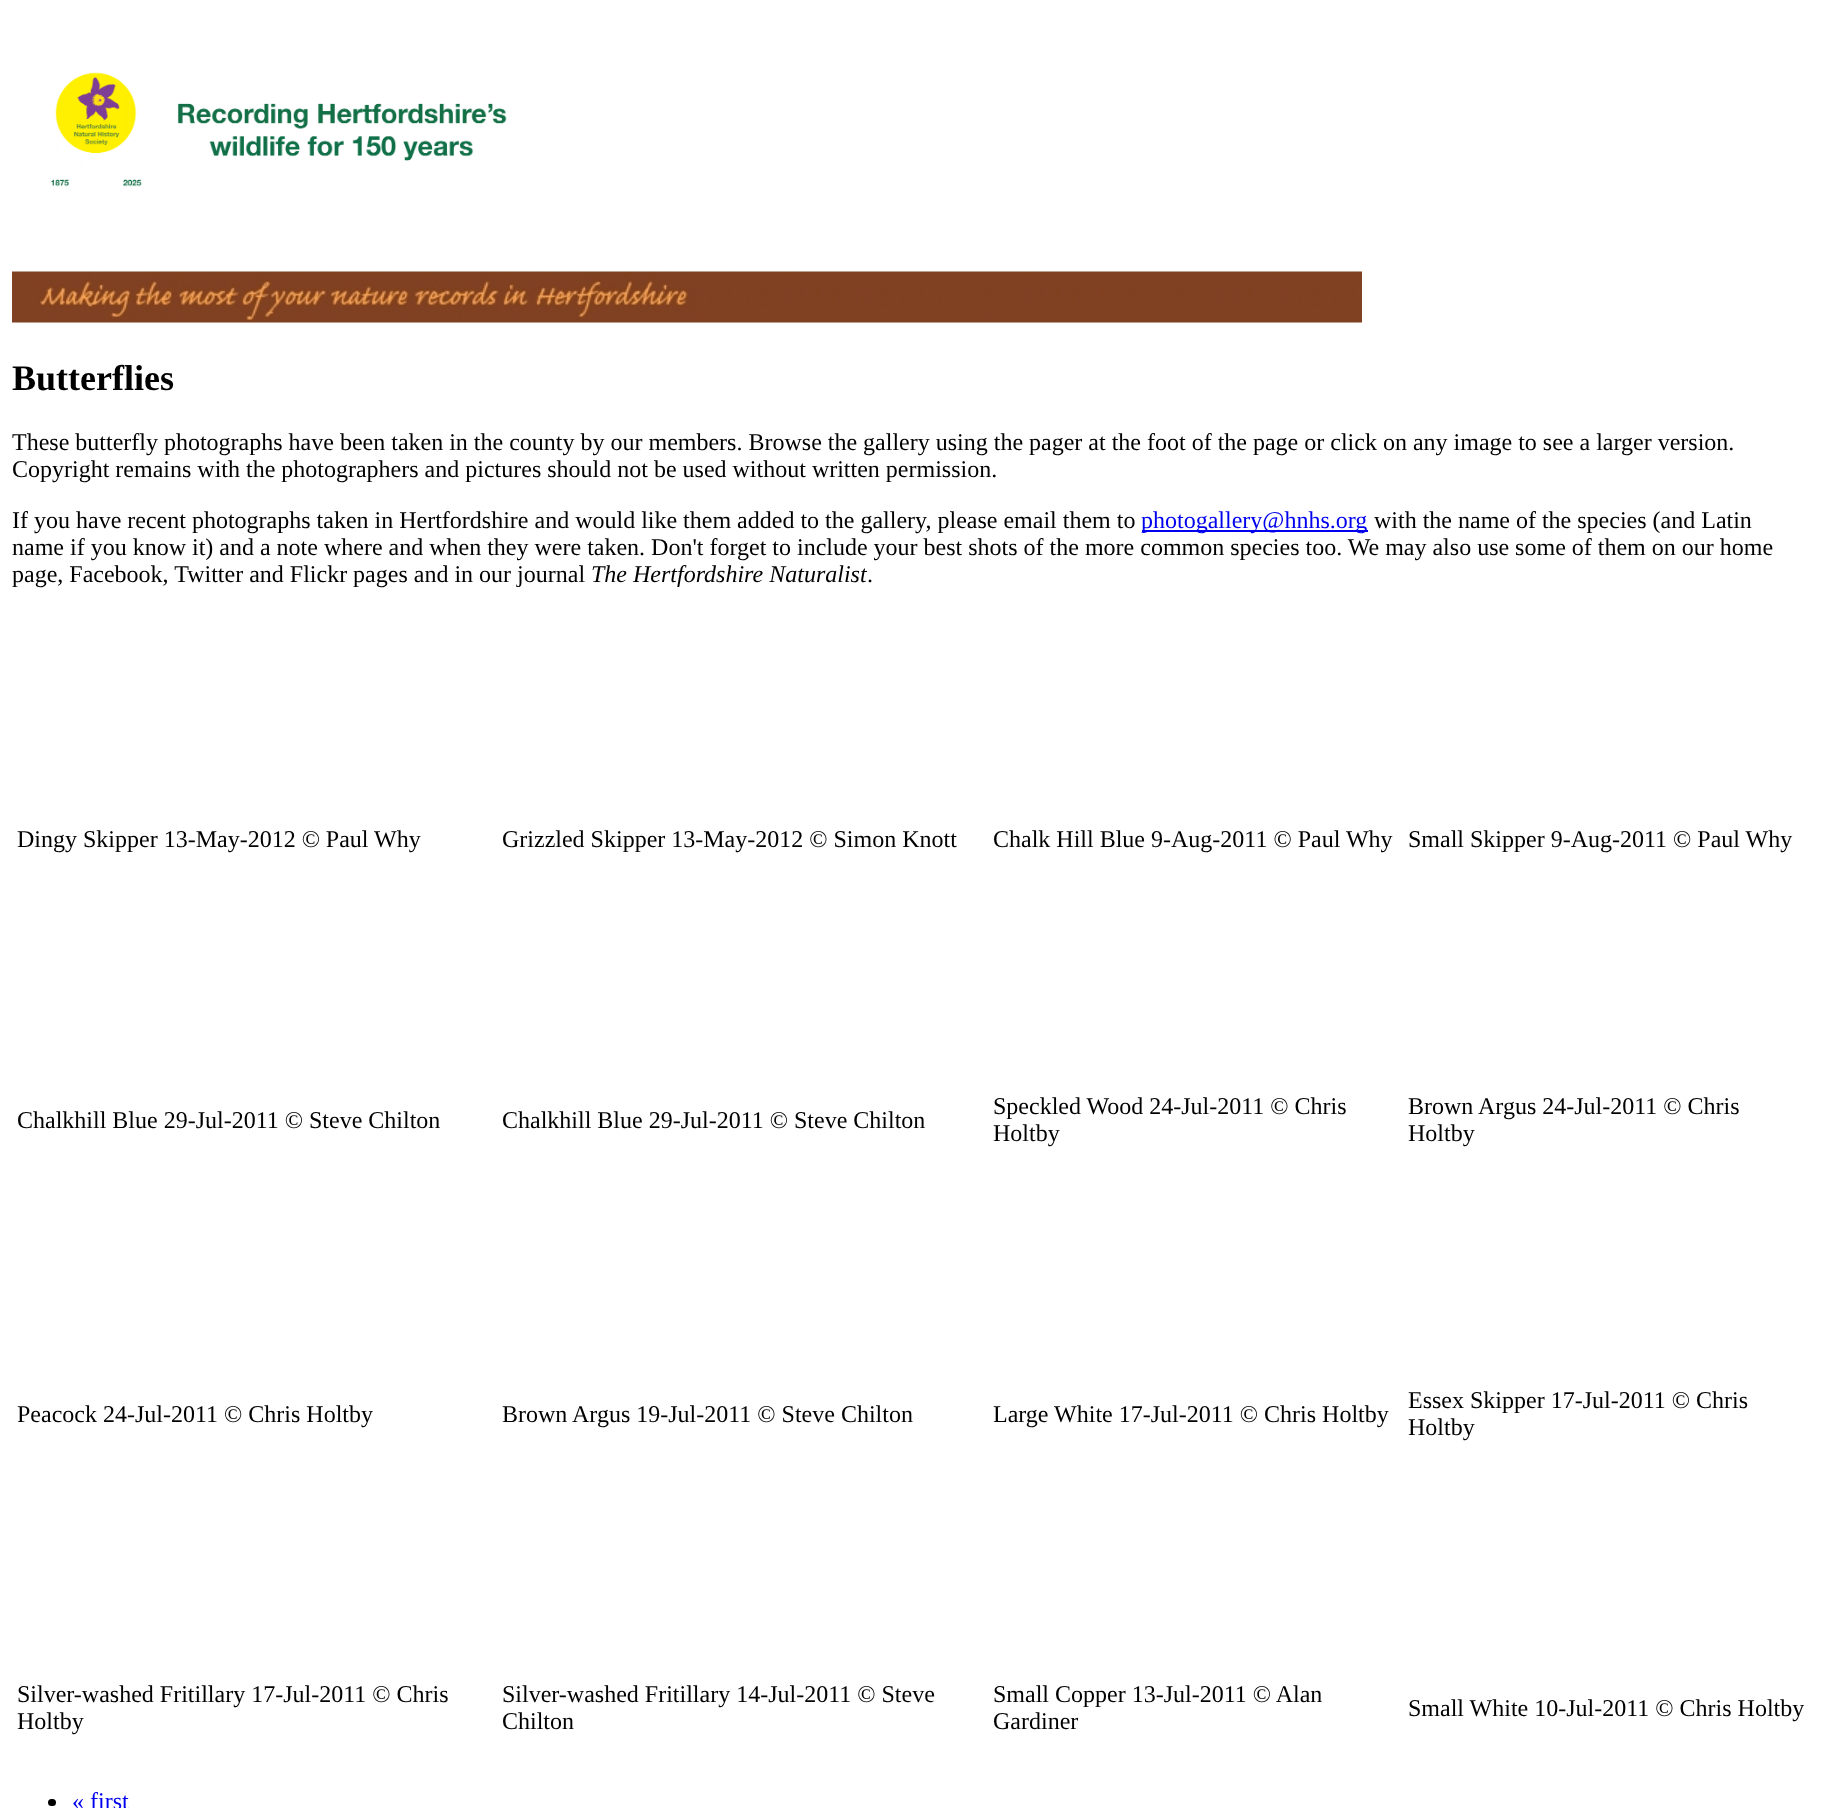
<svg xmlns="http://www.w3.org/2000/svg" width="1821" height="1808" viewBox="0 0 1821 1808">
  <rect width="100%" height="100%" fill="rgb(255,255,255)"/>
  <image x="50" y="72" width="457" height="115" href="pic1.png"/>
  <image x="12" y="271" width="1350" height="52" href="pic2.png"/>
  <text x="12" y="390" font-family="Liberation Serif" font-size="36" font-weight="bold" fill="rgb(0,0,0)">Butterflies</text>
  <g font-family="Liberation Serif" font-size="24" fill="rgb(0,0,0)">
    <text>
      <tspan x="12" y="450">These butterfly photographs have been taken in the county by our members. Browse the gallery using the pager at the foot of the page or click on any image to see a larger version.</tspan>
      <tspan x="12" y="477">Copyright remains with the photographers and pictures should not be used without written permission.</tspan>
    </text>
    <text x="12" y="528">If you have recent photographs taken in Hertfordshire and would like them added to the gallery, please email them to</text>
  </g>
  <rect x="1142" y="530" width="226" height="2" fill="rgb(0,0,238)"/>
  <text x="1141" y="528" font-family="Liberation Serif" font-size="24" fill="rgb(0,0,238)">photogallery@hnhs.org</text>
  <g font-family="Liberation Serif" font-size="24" fill="rgb(0,0,0)">
    <text x="1374" y="528">with the name of the species (and Latin</text>
    <text>
      <tspan x="12" y="555">name if you know it) and a note where and when they were taken. Don't forget to include your best shots of the more common species too. We may also use some of them on our home</tspan>
      <tspan x="12" y="582">page, Facebook, Twitter and Flickr pages and in our journal</tspan>
    </text>
  </g>
  <text x="591" y="582" font-family="Liberation Serif" font-size="24" font-style="italic" fill="rgb(0,0,0)">The Hertfordshire Naturalist</text>
  <g font-family="Liberation Serif" font-size="24" fill="rgb(0,0,0)">
    <text x="867" y="582">.</text>
    <text x="17" y="847">Dingy Skipper 13-May-2012 © Paul Why</text>
    <text x="502" y="847">Grizzled Skipper 13-May-2012 © Simon Knott</text>
    <text x="993" y="847">Chalk Hill Blue 9-Aug-2011 © Paul Why</text>
    <text x="1408" y="847">Small Skipper 9-Aug-2011 © Paul Why</text>
    <text x="17" y="1128">Chalkhill Blue 29-Jul-2011 © Steve Chilton</text>
    <text x="502" y="1128">Chalkhill Blue 29-Jul-2011 © Steve Chilton</text>
    <text>
      <tspan x="993" y="1114">Speckled Wood 24-Jul-2011 © Chris</tspan>
      <tspan x="993" y="1141">Holtby</tspan>
    </text>
    <text>
      <tspan x="1408" y="1114">Brown Argus 24-Jul-2011 © Chris</tspan>
      <tspan x="1408" y="1141">Holtby</tspan>
    </text>
    <text x="17" y="1422">Peacock 24-Jul-2011 © Chris Holtby</text>
    <text x="502" y="1422">Brown Argus 19-Jul-2011 © Steve Chilton</text>
    <text x="993" y="1422">Large White 17-Jul-2011 © Chris Holtby</text>
    <text>
      <tspan x="1408" y="1408">Essex Skipper 17-Jul-2011 © Chris</tspan>
      <tspan x="1408" y="1435">Holtby</tspan>
    </text>
    <text>
      <tspan x="17" y="1702">Silver-washed Fritillary 17-Jul-2011 © Chris</tspan>
      <tspan x="17" y="1729">Holtby</tspan>
    </text>
    <text>
      <tspan x="502" y="1702">Silver-washed Fritillary 14-Jul-2011 © Steve</tspan>
      <tspan x="502" y="1729">Chilton</tspan>
    </text>
    <text>
      <tspan x="993" y="1702">Small Copper 13-Jul-2011 © Alan</tspan>
      <tspan x="993" y="1729">Gardiner</tspan>
    </text>
    <text x="1408" y="1716">Small White 10-Jul-2011 © Chris Holtby</text>
  </g>
  <rect x="48" y="1799" width="8" height="7" rx="3.5" fill="rgb(0,0,0)"/>
  <text x="72" y="1809" font-family="Liberation Serif" font-size="24" fill="rgb(0,0,238)">« first</text>
</svg>
